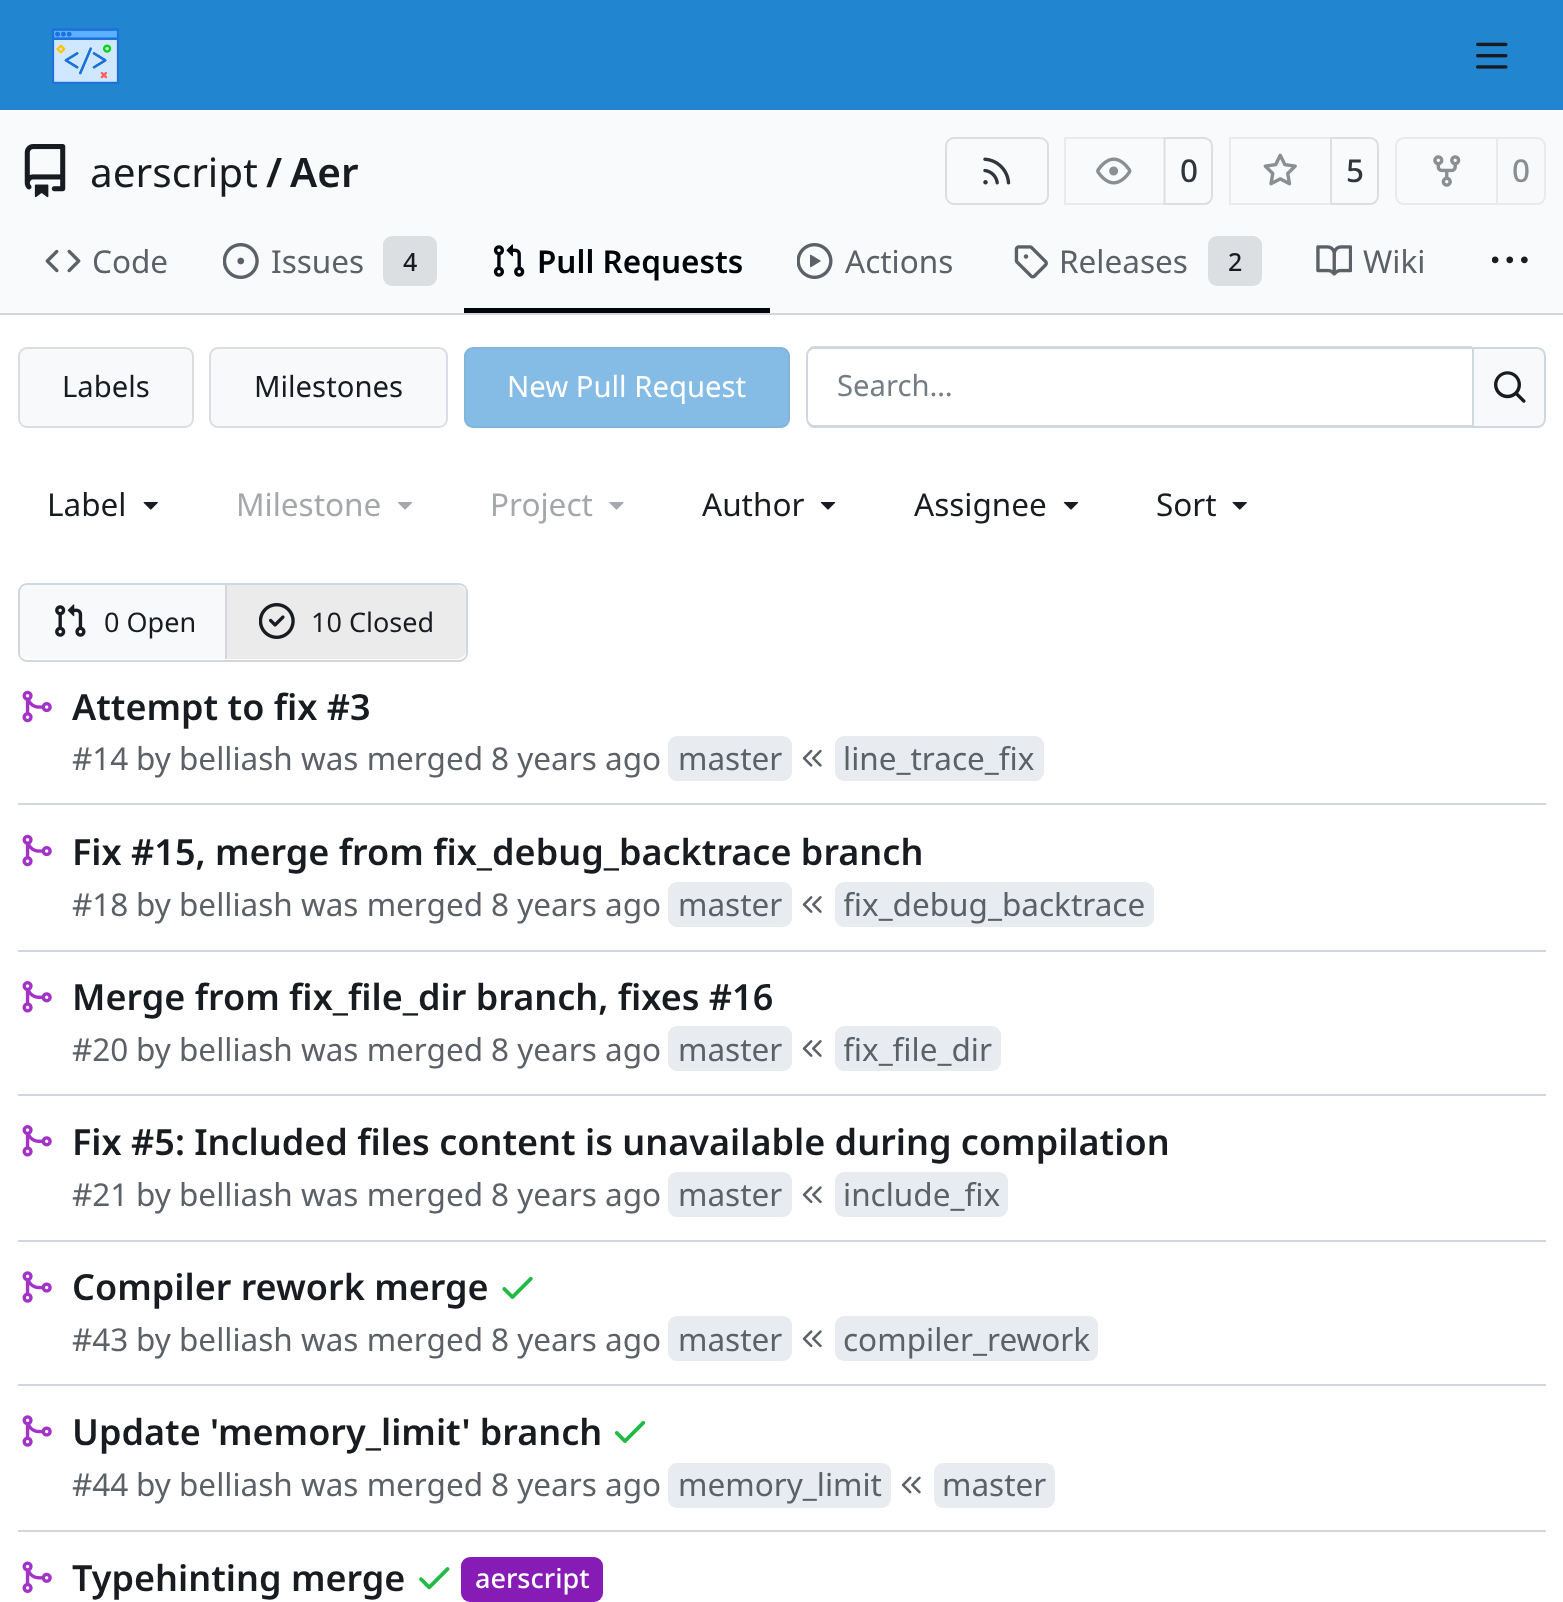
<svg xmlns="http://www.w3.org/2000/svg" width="1563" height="1602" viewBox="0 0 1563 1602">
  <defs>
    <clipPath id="clip1"><rect x="844" y="882" width="301" height="45"/></clipPath>
    <clipPath id="clip2"><rect x="844" y="1026" width="148" height="45"/></clipPath>
  </defs>
  <rect width="100%" height="100%" fill="rgb(255,255,255)"/>
  <rect x="0" y="0" width="1563" height="110" fill="rgb(33,133,208)"/>
  <image x="52" y="28" width="67" height="56" href="pic1.png"/>
  <image x="1476" y="42" width="32" height="27" href="pic2.png"/>
  <rect x="0" y="110" width="1563" height="203" fill="rgb(249,250,251)"/>
  <image x="24" y="144" width="42" height="54" href="pic3.png"/>
  <text x="90" y="187" font-family="Noto Sans" font-size="40.5" fill="rgb(24,28,33)">aerscript</text>
  <g font-family="Noto Sans" font-size="40.5" font-weight="600" fill="rgb(24,28,33)">
    <text x="266" y="187">/</text>
    <text x="290" y="187">Aer</text>
  </g>
  <rect x="946" y="138" width="102" height="66" rx="8" fill="none" stroke="rgb(221,222,225)" stroke-width="2"/>
  <image x="983" y="157" width="28" height="28" href="pic4.png"/>
  <path d="M1164 138H1204C1208.5 138 1212 141.5 1212 146V196C1212 200.5 1208.5 204 1204 204H1164Z" fill="none" stroke="rgb(221,222,225)" stroke-width="2"/>
  <path d="M1073 137H1166V205H1073C1068 205 1064 201 1064 196V146C1064 141 1068 137 1073 137Z" fill="rgba(248,249,251,0.55)"/>
  <rect x="1065" y="138" width="100" height="66" fill="none" stroke="rgba(0,0,23,0.06)" stroke-width="2"/>
  <image x="1096" y="157" width="36" height="28" href="pic5.png"/>
  <text x="1180" y="182" font-family="Noto Sans" font-size="31.5" font-weight="500" fill="rgb(48,54,59)">0</text>
  <path d="M1331 138H1370C1374.5 138 1378 141.5 1378 146V196C1378 200.5 1374.5 204 1370 204H1331Z" fill="none" stroke="rgb(221,222,225)" stroke-width="2"/>
  <path d="M1238 137H1332V205H1238C1233 205 1229 201 1229 196V146C1229 141 1233 137 1238 137Z" fill="rgba(248,249,251,0.55)"/>
  <rect x="1230" y="138" width="101" height="66" fill="none" stroke="rgba(0,0,23,0.06)" stroke-width="2"/>
  <image x="1263" y="153" width="34" height="33" href="pic6.png"/>
  <text x="1346" y="182" font-family="Noto Sans" font-size="31.5" font-weight="500" fill="rgb(48,54,59)">5</text>
  <path d="M1404 138H1498V204H1404C1399.5 204 1396 200.5 1396 196V146C1396 141.5 1399.5 138 1404 138Z" fill="none" stroke="rgb(233,234,237)" stroke-width="2"/>
  <image x="1433" y="155" width="28" height="32" href="pic7.png"/>
  <path d="M1497 138H1537C1541.5 138 1545 141.5 1545 146V196C1545 200.5 1541.5 204 1537 204H1497Z" fill="rgb(248,249,251)" stroke="rgb(233,234,237)" stroke-width="2"/>
  <text x="1512" y="182" font-family="Noto Sans" font-size="31.5" font-weight="500" fill="rgb(138,142,145)">0</text>
  <image x="45" y="249" width="36" height="24" href="pic8.png"/>
  <text x="92" y="273" font-family="Noto Sans" font-size="31.5" fill="rgb(91,97,103)">Code</text>
  <image x="223" y="243" width="36" height="36" href="pic9.png"/>
  <text x="271" y="273" font-family="Noto Sans" font-size="31.5" fill="rgb(91,97,103)">Issues</text>
  <rect x="383" y="236" width="54" height="50" rx="9" fill="rgb(219,223,226)"/>
  <text x="403" y="271" font-family="Noto Sans" font-size="25" font-weight="500" fill="rgb(24,28,33)">4</text>
  <rect x="464" y="308" width="306" height="5" fill="rgb(1,5,10)"/>
  <image x="493" y="244" width="32" height="33" href="pic10.png"/>
  <text x="537" y="273" font-family="Noto Sans" font-size="31.5" font-weight="600" fill="rgb(1,5,10)">Pull Requests</text>
  <image x="797" y="243" width="36" height="36" href="pic11.png"/>
  <text x="845" y="273" font-family="Noto Sans" font-size="31.5" fill="rgb(91,97,103)">Actions</text>
  <image x="1014" y="245" width="34" height="34" href="pic12.png"/>
  <text x="1059" y="273" font-family="Noto Sans" font-size="31.5" fill="rgb(91,97,103)">Releases</text>
  <rect x="1208" y="236" width="54" height="50" rx="9" fill="rgb(219,223,226)"/>
  <text x="1228" y="271" font-family="Noto Sans" font-size="25" font-weight="500" fill="rgb(24,28,33)">2</text>
  <image x="1316" y="245" width="36" height="31" href="pic13.png"/>
  <text x="1363" y="273" font-family="Noto Sans" font-size="31.5" fill="rgb(91,97,103)">Wiki</text>
  <image x="1492" y="256" width="36" height="8" href="pic14.png"/>
  <rect x="0" y="313" width="1563" height="2" fill="rgb(208,215,222)"/>
  <rect x="18" y="347" width="176" height="81" rx="9" fill="rgb(248,249,251)"/>
  <rect x="19" y="348" width="174" height="79" rx="8" fill="none" stroke="rgba(0,0,23,0.11)" stroke-width="2"/>
  <text x="62" y="397" font-family="Noto Sans" font-size="29.25" fill="rgb(24,28,33)">Labels</text>
  <rect x="209" y="347" width="239" height="81" rx="9" fill="rgb(248,249,251)"/>
  <rect x="210" y="348" width="237" height="79" rx="8" fill="none" stroke="rgba(0,0,23,0.11)" stroke-width="2"/>
  <text x="254" y="397" font-family="Noto Sans" font-size="29.25" fill="rgb(24,28,33)">Milestones</text>
  <rect x="464" y="347" width="326" height="81" rx="9" fill="rgb(133,188,229)"/>
  <rect x="465" y="348" width="324" height="79" rx="8" fill="none" stroke="rgba(115,115,127,0.11)" stroke-width="2"/>
  <text x="507" y="397" font-family="Noto Sans" font-size="29.25" fill="rgb(255,255,255)">New Pull Request</text>
  <path d="M814 346H1472V428H814C810 428 806 423 806 418V356C806 351 810 346 814 346ZM814 349H1472V425H814C811 425 808 422 808 418V356C808 352 811 349 814 349Z" fill="rgb(208,215,222)" fill-rule="evenodd"/>
  <text x="837" y="396" font-family="Noto Sans" font-size="29.25" fill="rgb(116,124,132)">Search…</text>
  <path d="M1473 348H1537C1541.5 348 1545 351.5 1545 356V419C1545 423.5 1541.5 427 1537 427H1473Z" fill="rgb(248,249,251)" stroke="rgb(208,215,222)" stroke-width="2"/>
  <image x="1494" y="371" width="32" height="32" href="pic15.png"/>
  <text x="47" y="516" font-family="Noto Sans" font-size="31.5" fill="rgb(24,28,33)">Label</text>
  <image x="143" y="502" width="15" height="8" href="pic16.png"/>
  <text x="236" y="516" font-family="Noto Sans" font-size="31.5" fill="rgb(165,168,171)">Milestone</text>
  <image x="397" y="502" width="16" height="8" href="pic17.png"/>
  <text x="490" y="516" font-family="Noto Sans" font-size="31.5" fill="rgb(165,168,171)">Project</text>
  <image x="609" y="502" width="15" height="8" href="pic18.png"/>
  <text x="702" y="516" font-family="Noto Sans" font-size="31.5" fill="rgb(24,28,33)">Author</text>
  <image x="820" y="502" width="16" height="8" href="pic19.png"/>
  <text x="914" y="516" font-family="Noto Sans" font-size="31.5" fill="rgb(24,28,33)">Assignee</text>
  <image x="1063" y="502" width="16" height="8" href="pic19.png"/>
  <text x="1156" y="516" font-family="Noto Sans" font-size="31.5" fill="rgb(24,28,33)">Sort</text>
  <image x="1232" y="502" width="15" height="8" href="pic16.png"/>
  <rect x="19" y="584" width="448" height="77" rx="8" fill="none" stroke="rgb(208,215,222)" stroke-width="2"/>
  <path d="M29 585H227V659H29C24 659 20 655 20 650V594C20 589 24 585 29 585Z" fill="rgb(248,249,251)"/>
  <image x="55" y="604" width="31" height="33" href="pic20.png"/>
  <text x="104" y="632" font-family="Noto Sans" font-size="27" fill="rgb(24,28,33)">0 Open</text>
  <rect x="225" y="585" width="2" height="74" fill="rgb(208,215,222)"/>
  <path d="M227 585H457C462 585 466 589 466 594V650C466 655 462 659 457 659H227Z" fill="rgb(235,235,236)"/>
  <image x="259" y="603" width="36" height="36" href="pic21.png"/>
  <text x="311" y="632" font-family="Noto Sans" font-size="27" fill="rgb(24,28,33)">10 Closed</text>
  <image x="22" y="690" width="30" height="33" href="pic22.png"/>
  <text x="72" y="720" font-family="Noto Sans" font-size="36" font-weight="600" fill="rgb(24,28,33)">Attempt to fix #3</text>
  <g font-family="Noto Sans" font-size="31.5" fill="rgb(91,97,103)">
    <text x="72" y="770">#14</text>
    <text x="136" y="770">by belliash was merged</text>
    <text x="491" y="770">8 years ago</text>
  </g>
  <rect x="668" y="736" width="124" height="45" rx="9" fill="rgb(232,235,239)"/>
  <text x="678" y="770" font-family="Noto Sans" font-size="31.5" fill="rgb(91,97,103)">master</text>
  <image x="802" y="749" width="20" height="18" href="pic23.png"/>
  <rect x="835" y="736" width="209" height="45" rx="9" fill="rgb(232,235,239)"/>
  <text x="843" y="770" font-family="Noto Sans" font-size="31.5" fill="rgb(91,97,103)">line_trace_fix</text>
  <rect x="18" y="803" width="1528" height="2" fill="rgb(208,215,222)"/>
  <image x="22" y="834" width="30" height="33" href="pic22.png"/>
  <text x="72" y="865" font-family="Noto Sans" font-size="36" font-weight="600" fill="rgb(24,28,33)">Fix #15, merge from fix_debug_backtrace branch</text>
  <g font-family="Noto Sans" font-size="31.5" fill="rgb(91,97,103)">
    <text x="72" y="916">#18</text>
    <text x="136" y="916">by belliash was merged</text>
    <text x="491" y="916">8 years ago</text>
  </g>
  <rect x="668" y="882" width="124" height="45" rx="9" fill="rgb(232,235,239)"/>
  <text x="678" y="916" font-family="Noto Sans" font-size="31.5" fill="rgb(91,97,103)">master</text>
  <image x="802" y="896" width="20" height="17" href="pic24.png"/>
  <rect x="835" y="882" width="319" height="45" rx="9" fill="rgb(232,235,239)"/>
  <g clip-path="url(#clip1)">
    <text x="843" y="916" font-family="Noto Sans" font-size="31.5" fill="rgb(91,97,103)">fix_debug_backtrace</text>
  </g>
  <rect x="18" y="950" width="1528" height="2" fill="rgb(208,215,222)"/>
  <image x="22" y="981" width="30" height="32" href="pic25.png"/>
  <text x="72" y="1010" font-family="Noto Sans" font-size="36" font-weight="600" fill="rgb(24,28,33)">Merge from fix_file_dir branch, fixes #16</text>
  <g font-family="Noto Sans" font-size="31.5" fill="rgb(91,97,103)">
    <text x="72" y="1061">#20</text>
    <text x="136" y="1061">by belliash was merged</text>
    <text x="491" y="1061">8 years ago</text>
  </g>
  <rect x="668" y="1026" width="124" height="45" rx="9" fill="rgb(232,235,239)"/>
  <text x="678" y="1061" font-family="Noto Sans" font-size="31.5" fill="rgb(91,97,103)">master</text>
  <image x="802" y="1040" width="20" height="17" href="pic24.png"/>
  <rect x="835" y="1026" width="166" height="45" rx="9" fill="rgb(232,235,239)"/>
  <g clip-path="url(#clip2)">
    <text x="843" y="1061" font-family="Noto Sans" font-size="31.5" fill="rgb(91,97,103)">fix_file_dir</text>
  </g>
  <rect x="18" y="1094" width="1528" height="2" fill="rgb(208,215,222)"/>
  <image x="22" y="1125" width="30" height="32" href="pic25.png"/>
  <text x="72" y="1155" font-family="Noto Sans" font-size="36" font-weight="600" fill="rgb(24,28,33)">Fix #5: Included files content is unavailable during compilation</text>
  <g font-family="Noto Sans" font-size="31.5" fill="rgb(91,97,103)">
    <text x="72" y="1206">#21</text>
    <text x="136" y="1206">by belliash was merged</text>
    <text x="491" y="1206">8 years ago</text>
  </g>
  <rect x="668" y="1172" width="124" height="45" rx="9" fill="rgb(232,235,239)"/>
  <text x="678" y="1206" font-family="Noto Sans" font-size="31.5" fill="rgb(91,97,103)">master</text>
  <image x="802" y="1186" width="20" height="18" href="pic26.png"/>
  <rect x="835" y="1172" width="173" height="45" rx="9" fill="rgb(232,235,239)"/>
  <text x="843" y="1206" font-family="Noto Sans" font-size="31.5" fill="rgb(91,97,103)">include_fix</text>
  <rect x="18" y="1240" width="1528" height="2" fill="rgb(208,215,222)"/>
  <image x="22" y="1271" width="30" height="32" href="pic27.png"/>
  <text x="72" y="1300" font-family="Noto Sans" font-size="36" font-weight="600" fill="rgb(24,28,33)">Compiler rework merge</text>
  <image x="502" y="1276" width="31" height="23" href="pic28.png"/>
  <g font-family="Noto Sans" font-size="31.5" fill="rgb(91,97,103)">
    <text x="72" y="1351">#43</text>
    <text x="136" y="1351">by belliash was merged</text>
    <text x="491" y="1351">8 years ago</text>
  </g>
  <rect x="668" y="1316" width="124" height="45" rx="9" fill="rgb(232,235,239)"/>
  <text x="678" y="1351" font-family="Noto Sans" font-size="31.5" fill="rgb(91,97,103)">master</text>
  <image x="802" y="1330" width="20" height="18" href="pic26.png"/>
  <rect x="835" y="1316" width="263" height="45" rx="9" fill="rgb(232,235,239)"/>
  <text x="843" y="1351" font-family="Noto Sans" font-size="31.5" fill="rgb(91,97,103)">compiler_rework</text>
  <rect x="18" y="1384" width="1528" height="2" fill="rgb(208,215,222)"/>
  <image x="22" y="1415" width="30" height="32" href="pic27.png"/>
  <text x="72" y="1445" font-family="Noto Sans" font-size="36" font-weight="600" fill="rgb(24,28,33)">Update 'memory_limit' branch</text>
  <image x="614" y="1420" width="32" height="23" href="pic29.png"/>
  <g font-family="Noto Sans" font-size="31.5" fill="rgb(91,97,103)">
    <text x="72" y="1496">#44</text>
    <text x="136" y="1496">by belliash was merged</text>
    <text x="491" y="1496">8 years ago</text>
  </g>
  <rect x="668" y="1463" width="223" height="45" rx="9" fill="rgb(232,235,239)"/>
  <text x="678" y="1496" font-family="Noto Sans" font-size="31.5" fill="rgb(91,97,103)">memory_limit</text>
  <image x="901" y="1476" width="20" height="18" href="pic30.png"/>
  <rect x="934" y="1463" width="121" height="45" rx="9" fill="rgb(232,235,239)"/>
  <text x="942" y="1496" font-family="Noto Sans" font-size="31.5" fill="rgb(91,97,103)">master</text>
  <rect x="18" y="1530" width="1528" height="2" fill="rgb(208,215,222)"/>
  <image x="22" y="1561" width="30" height="32" href="pic31.png"/>
  <text x="72" y="1591" font-family="Noto Sans" font-size="36" font-weight="600" fill="rgb(24,28,33)">Typehinting merge</text>
  <image x="419" y="1567" width="31" height="23" href="pic32.png"/>
  <rect x="461" y="1557" width="142" height="45" rx="9" fill="rgb(135,27,181)"/>
  <text x="475" y="1588" font-family="Noto Sans" font-size="27" font-weight="500" fill="rgb(255,255,255)">aerscript</text>
</svg>
